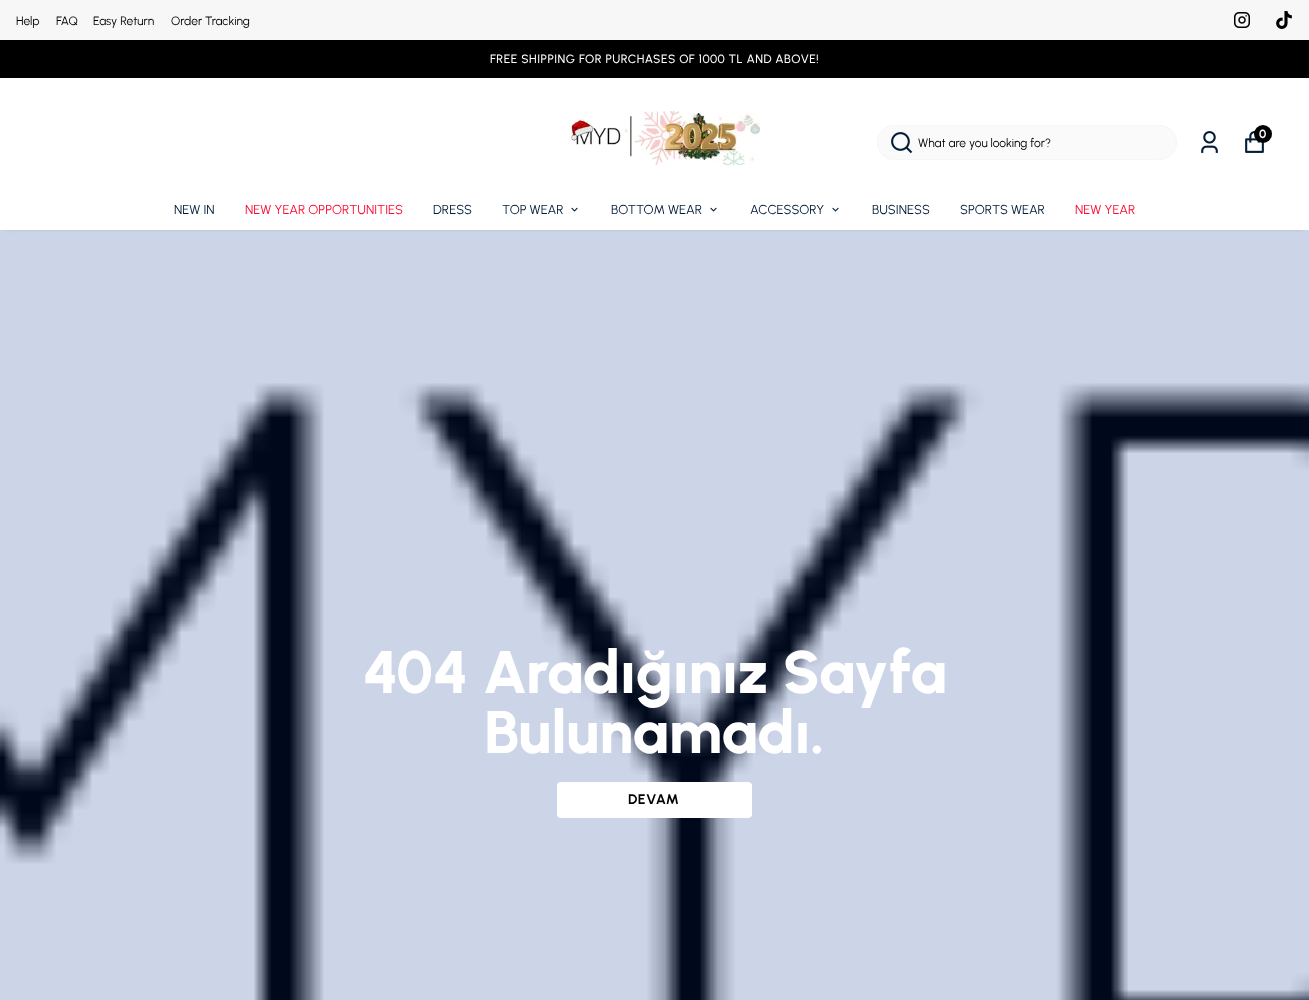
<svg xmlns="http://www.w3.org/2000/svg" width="1309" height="1000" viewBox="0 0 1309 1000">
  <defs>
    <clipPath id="clip1"><rect x="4" y="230" width="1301" height="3"/></clipPath>
  </defs>
  <rect width="100%" height="100%" fill="rgb(255,255,255)"/>
  <rect x="0" y="230" width="1309" height="770" fill="rgb(204,212,232)"/>
  <rect x="0" y="0" width="1309" height="40" fill="rgb(247,247,247)"/>
  <g font-family="Urbanist" font-size="12" fill="rgb(0,0,0)">
    <text x="16" y="25">Help</text>
    <text x="56" y="25">FAQ</text>
    <text x="93" y="25">Easy Return</text>
    <text x="171" y="25">Order Tracking</text>
  </g>
  <image x="1234" y="12" width="16" height="16" href="pic1.png"/>
  <image x="1276" y="11" width="16" height="18" href="pic2.png"/>
  <rect x="0" y="40" width="1309" height="38" fill="rgb(0,0,0)"/>
  <text x="490" y="63" font-family="Urbanist" font-size="12" font-weight="500" letter-spacing="0.5" fill="rgb(255,255,255)">FREE SHIPPING FOR PURCHASES OF 1000 TL AND ABOVE!</text>
  <g clip-path="url(#clip1)">
    <rect x="7" y="90" width="1295" height="138" fill="rgb(152,152,152)" filter="blur(2.5px)"/>
  </g>
  <image x="569" y="111" width="191" height="54" href="pic3.png"/>
  <rect x="877.5" y="125.5" width="299" height="34" rx="17" fill="rgb(250,250,250)" stroke="rgb(246,246,246)"/>
  <image x="891" y="132" width="22" height="22" href="pic4.png"/>
  <text x="918" y="147" font-family="Urbanist" font-size="12" fill="rgb(0,0,0)">What are you looking for?</text>
  <image x="1201" y="131" width="17" height="22" href="pic5.png"/>
  <image x="1245" y="131" width="19" height="22" href="pic6.png"/>
  <circle cx="1263" cy="134" r="9" fill="rgb(0,0,0)"/>
  <text x="1259" y="138" font-family="Urbanist" font-size="12" font-weight="bold" fill="rgb(255,255,255)">0</text>
  <text x="174" y="214" font-family="Urbanist" font-size="13" fill="rgb(3,28,55)">NEW IN</text>
  <text x="245" y="214" font-family="Urbanist" font-size="13" fill="rgb(255,11,48)">NEW YEAR OPPORTUNITIES</text>
  <g font-family="Urbanist" font-size="13" fill="rgb(3,28,55)">
    <text x="433" y="214">DRESS</text>
    <text x="502" y="214">TOP WEAR</text>
  </g>
  <image x="571" y="207" width="7" height="5" href="pic7.png"/>
  <text x="611" y="214" font-family="Urbanist" font-size="13" fill="rgb(3,28,55)">BOTTOM WEAR</text>
  <image x="710" y="207" width="7" height="5" href="pic7.png"/>
  <text x="750" y="214" font-family="Urbanist" font-size="13" fill="rgb(3,28,55)">ACCESSORY</text>
  <image x="832" y="207" width="7" height="5" href="pic7.png"/>
  <g font-family="Urbanist" font-size="13" fill="rgb(3,28,55)">
    <text x="872" y="214">BUSINESS</text>
    <text x="960" y="214">SPORTS WEAR</text>
  </g>
  <text x="1075" y="214" font-family="Urbanist" font-size="13" fill="rgb(255,11,48)">NEW YEAR</text>
  <image x="0" y="383" width="1309" height="617" href="pic8.png"/>
  <g font-family="Urbanist" font-size="60" font-weight="800" fill="rgb(255,255,255)">
    <text x="363" y="693">404 Aradığınız Sayfa</text>
    <text x="484" y="753">Bulunamadı.</text>
  </g>
  <rect x="557" y="782" width="195" height="36" rx="4" fill="rgb(255,255,255)"/>
  <text x="628" y="804" font-family="Urbanist" font-size="14" font-weight="bold" letter-spacing="0.5" fill="rgb(0,0,0)">DEVAM</text>
</svg>
